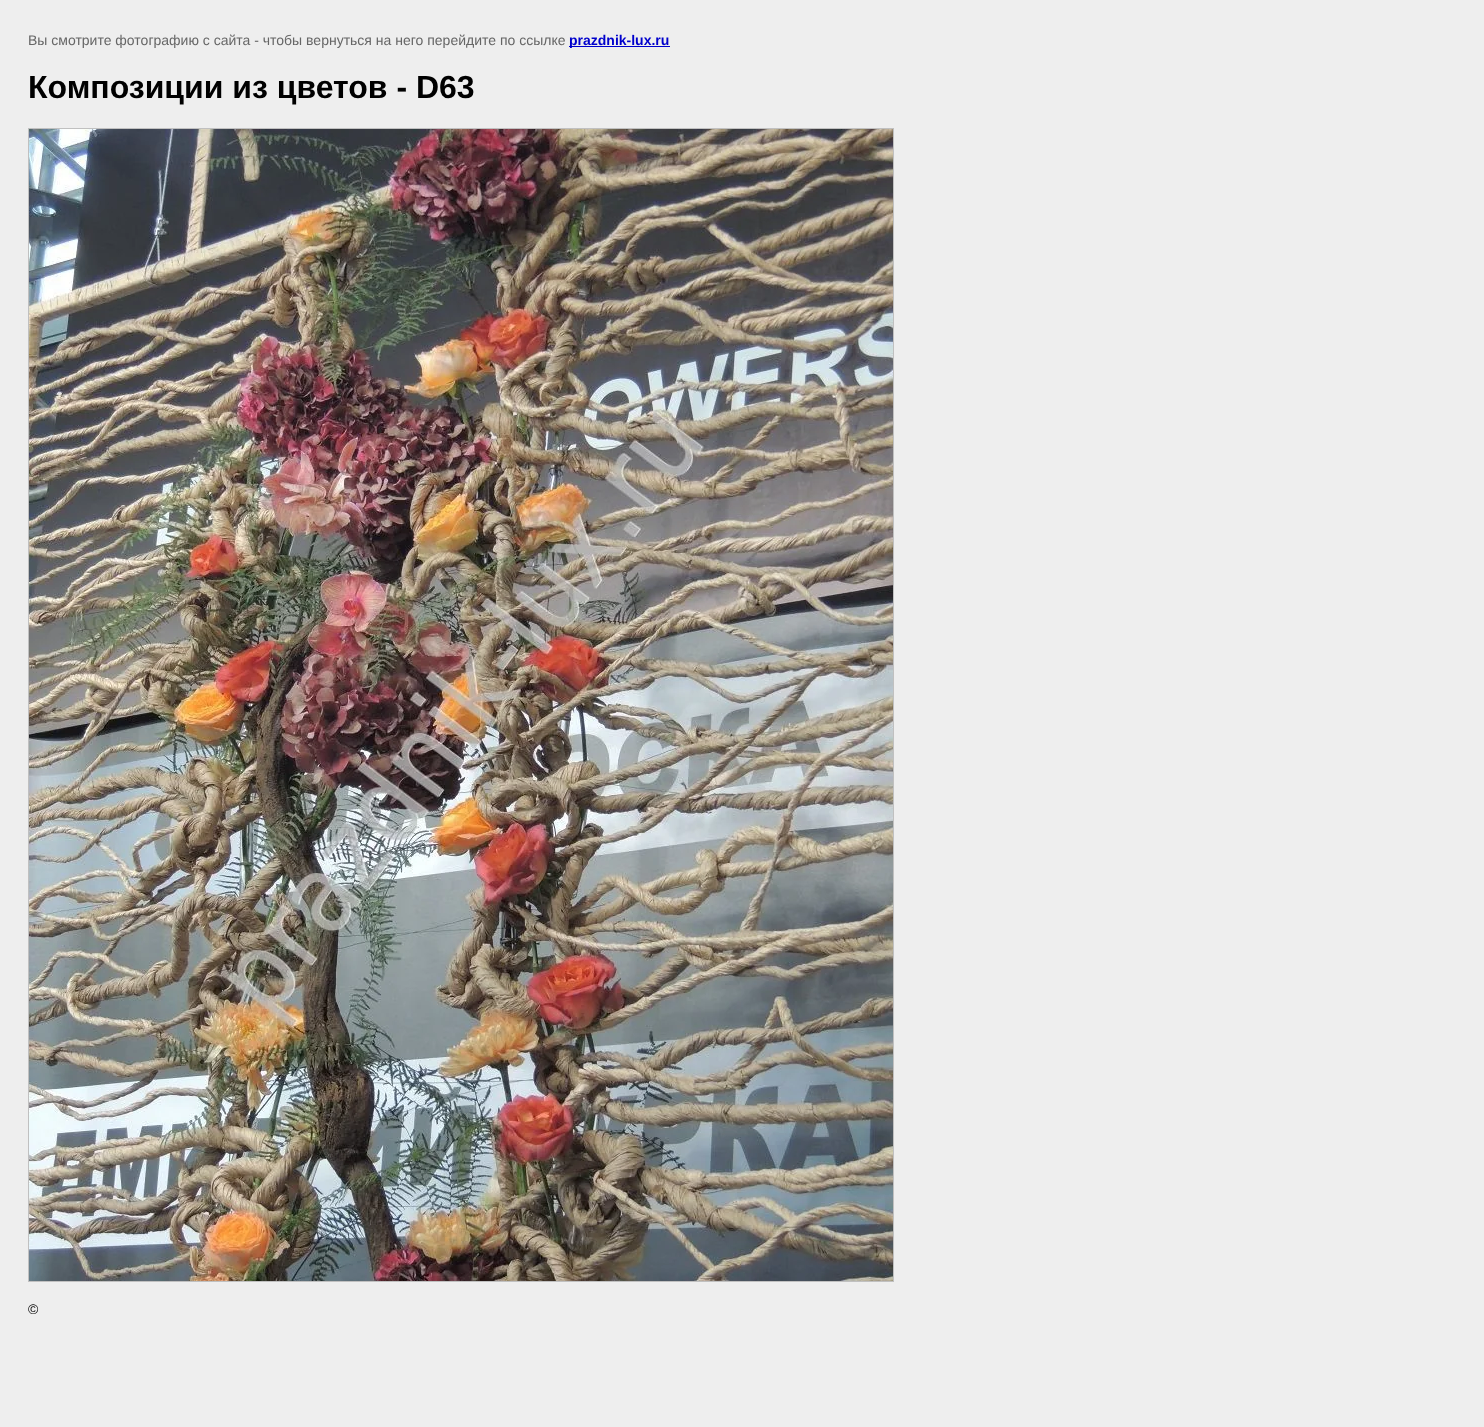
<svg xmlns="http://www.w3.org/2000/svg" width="1484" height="1427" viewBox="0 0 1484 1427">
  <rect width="100%" height="100%" fill="rgb(238,238,238)"/>
  <text x="28" y="45" font-family="Liberation Sans" font-size="14" fill="rgb(102,102,102)">Вы смотрите фотографию с сайта - чтобы вернуться на него перейдите по ссылке</text>
  <rect x="569" y="46" width="101" height="1" fill="rgb(0,0,204)"/>
  <text x="569" y="45" font-family="Liberation Sans" font-size="14" font-weight="bold" fill="rgb(0,0,204)">prazdnik-lux.ru</text>
  <text x="28" y="98" font-family="Liberation Sans" font-size="32" font-weight="bold" fill="rgb(0,0,0)">Композиции из цветов - D63</text>
  <rect x="28.5" y="128.5" width="865" height="1153" fill="none" stroke="rgb(192,192,192)"/>
  <image x="29" y="129" width="864" height="1152" href="pic1.png"/>
  <text x="28" y="1314" font-family="Liberation Sans" font-size="14" fill="rgb(0,0,0)">©</text>
</svg>
